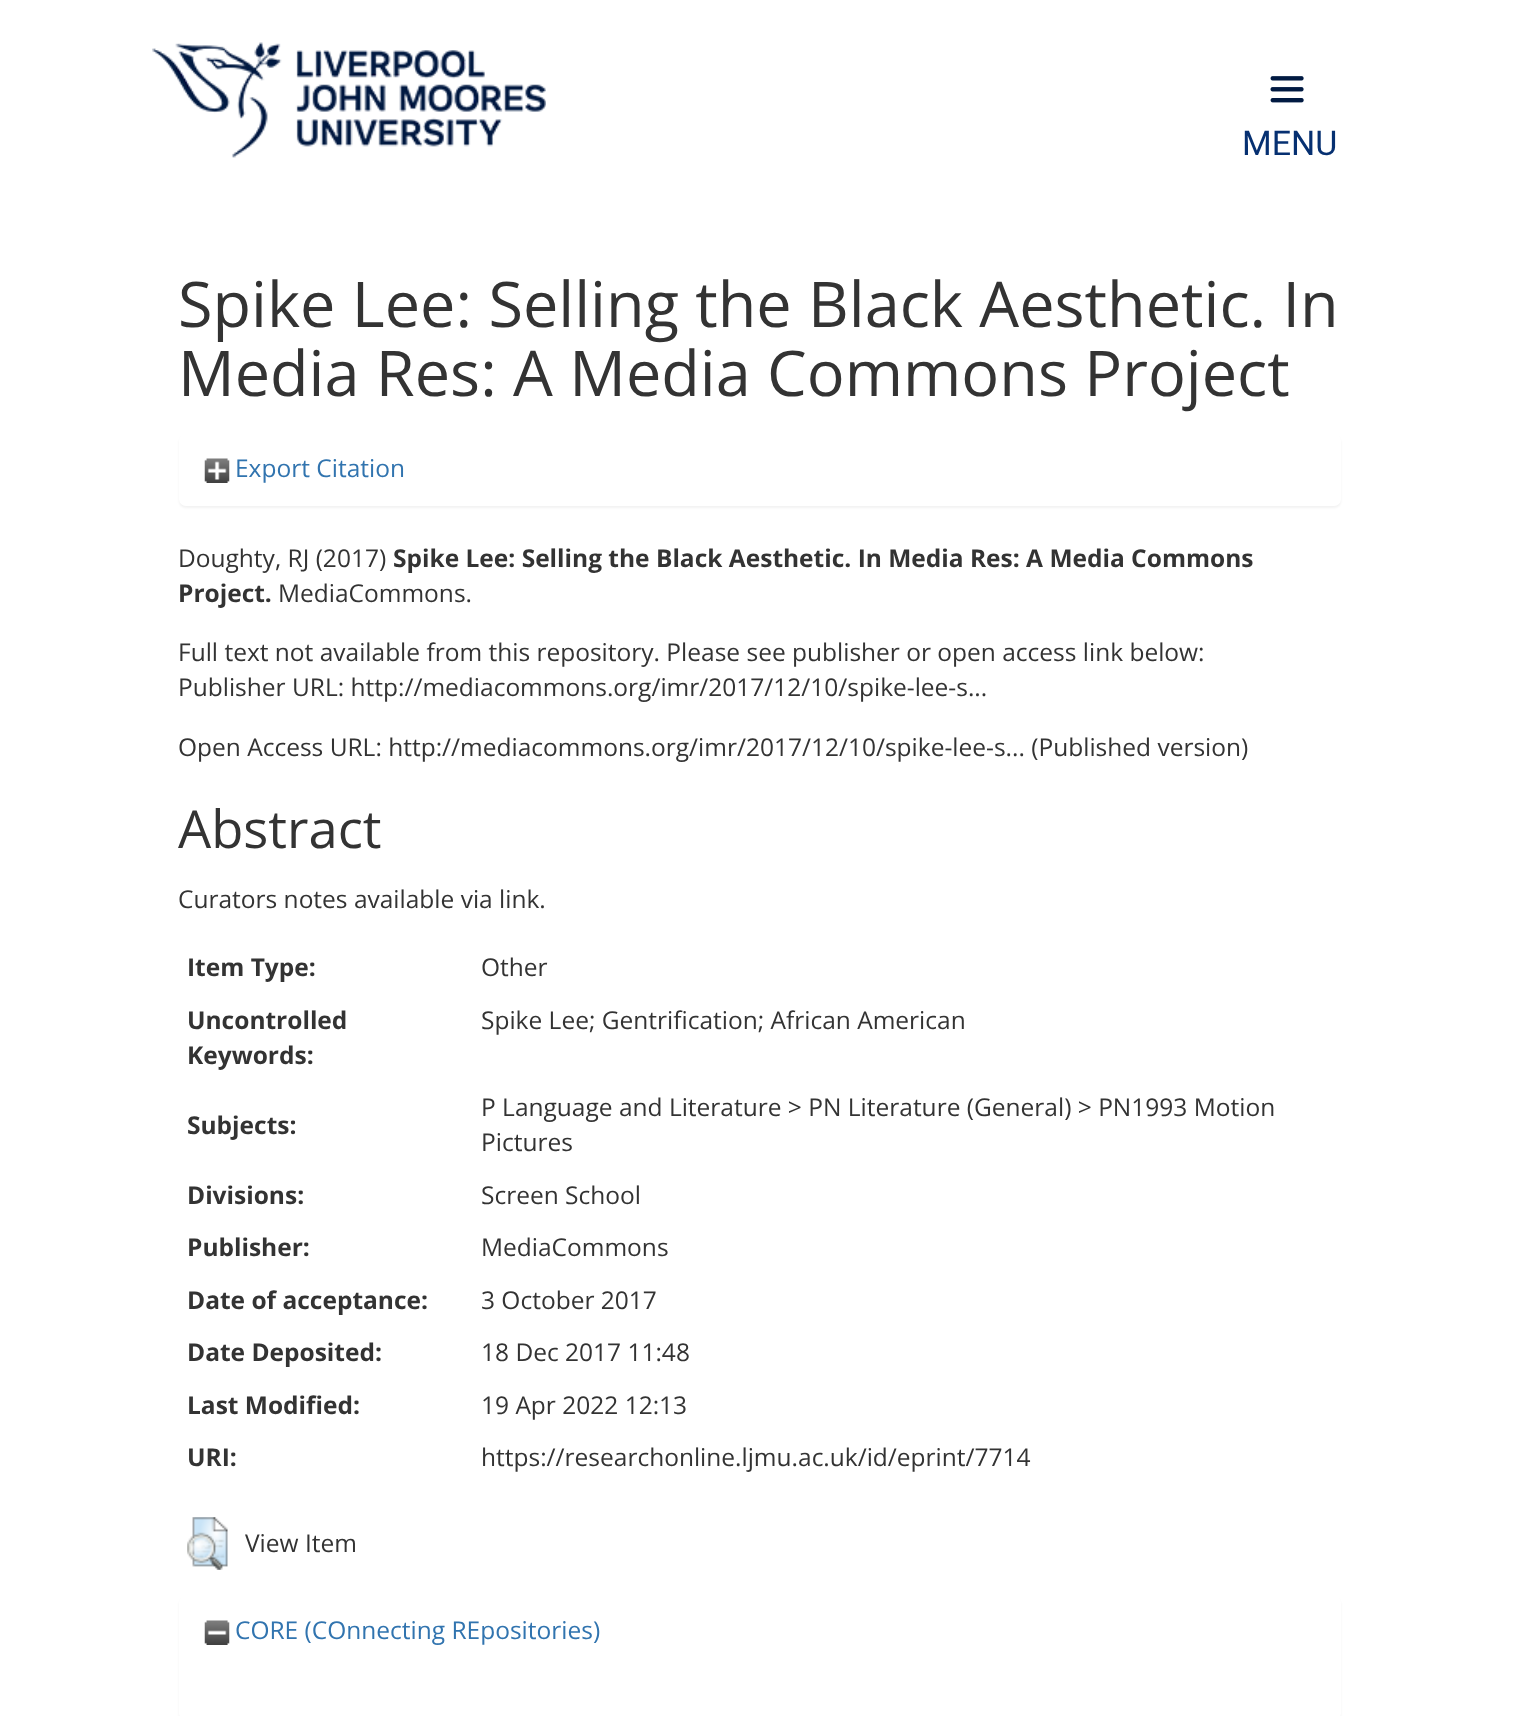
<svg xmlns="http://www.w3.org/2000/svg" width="1518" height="1716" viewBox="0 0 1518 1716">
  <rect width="100%" height="100%" fill="rgb(255,255,255)"/>
  <image x="152" y="42" width="394" height="116" href="pic1.png"/>
  <image x="1270" y="76" width="34" height="27" href="pic2.png"/>
  <text x="1242" y="155" font-family="Roboto" font-size="34" fill="rgb(6,48,113)">MENU</text>
  <g font-family="Open Sans" font-size="63" fill="rgb(51,51,51)">
    <text>
      <tspan x="178" y="327">Spike Lee: Selling the Black Aesthetic. In</tspan>
      <tspan x="178" y="396">Media Res: A Media Commons Project</tspan>
    </text>
  </g>
  <rect x="179" y="436" width="1162" height="72" rx="7" fill="rgba(0,0,0,0.05)" filter="blur(1px)"/>
  <rect x="179" y="434" width="1162" height="72" rx="7" fill="rgb(255,255,255)"/>
  <image x="204" y="458" width="26" height="25" href="pic3.png"/>
  <text x="235" y="477" font-family="Open Sans" font-size="24.5" fill="rgb(49,116,175)">Export Citation</text>
  <text x="178" y="567" font-family="Open Sans" font-size="24.5" fill="rgb(51,51,51)">Doughty, RJ (2017)</text>
  <g font-family="Open Sans" font-size="24.5" font-weight="bold" fill="rgb(51,51,51)">
    <text x="393" y="567">Spike Lee: Selling the Black Aesthetic. In Media Res: A Media Commons</text>
    <text x="178" y="602">Project.</text>
  </g>
  <g font-family="Open Sans" font-size="24.5" fill="rgb(51,51,51)">
    <text x="278" y="602">MediaCommons.</text>
    <text>
      <tspan x="178" y="661">Full text not available from this repository. Please see publisher or open access link below:</tspan>
      <tspan x="178" y="696">Publisher URL: http://mediacommons.org/imr/2017/12/10/spike-lee-s...</tspan>
    </text>
    <text x="178" y="756">Open Access URL: http://mediacommons.org/imr/2017/12/10/spike-lee-s... (Published version)</text>
  </g>
  <text x="178" y="848" font-family="Open Sans" font-size="52.5" fill="rgb(51,51,51)">Abstract</text>
  <text x="178" y="908" font-family="Open Sans" font-size="24.5" fill="rgb(51,51,51)">Curators notes available via link.</text>
  <text x="187" y="976" font-family="Open Sans" font-size="24.5" font-weight="bold" fill="rgb(51,51,51)">Item Type:</text>
  <text x="481" y="976" font-family="Open Sans" font-size="24.5" fill="rgb(51,51,51)">Other</text>
  <g font-family="Open Sans" font-size="24.5" font-weight="bold" fill="rgb(51,51,51)">
    <text>
      <tspan x="187" y="1029">Uncontrolled</tspan>
      <tspan x="187" y="1064">Keywords:</tspan>
    </text>
  </g>
  <text x="481" y="1029" font-family="Open Sans" font-size="24.5" fill="rgb(51,51,51)">Spike Lee; Gentrification; African American</text>
  <text x="187" y="1134" font-family="Open Sans" font-size="24.5" font-weight="bold" fill="rgb(51,51,51)">Subjects:</text>
  <g font-family="Open Sans" font-size="24.5" fill="rgb(51,51,51)">
    <text>
      <tspan x="481" y="1116">P Language and Literature &gt; PN Literature (General) &gt; PN1993 Motion</tspan>
      <tspan x="481" y="1151">Pictures</tspan>
    </text>
  </g>
  <text x="187" y="1204" font-family="Open Sans" font-size="24.5" font-weight="bold" fill="rgb(51,51,51)">Divisions:</text>
  <text x="481" y="1204" font-family="Open Sans" font-size="24.5" fill="rgb(51,51,51)">Screen School</text>
  <text x="187" y="1256" font-family="Open Sans" font-size="24.5" font-weight="bold" fill="rgb(51,51,51)">Publisher:</text>
  <text x="481" y="1256" font-family="Open Sans" font-size="24.5" fill="rgb(51,51,51)">MediaCommons</text>
  <text x="187" y="1309" font-family="Open Sans" font-size="24.5" font-weight="bold" fill="rgb(51,51,51)">Date of acceptance:</text>
  <text x="481" y="1309" font-family="Open Sans" font-size="24.5" fill="rgb(51,51,51)">3 October 2017</text>
  <text x="187" y="1361" font-family="Open Sans" font-size="24.5" font-weight="bold" fill="rgb(51,51,51)">Date Deposited:</text>
  <text x="481" y="1361" font-family="Open Sans" font-size="24.5" fill="rgb(51,51,51)">18 Dec 2017 11:48</text>
  <text x="187" y="1414" font-family="Open Sans" font-size="24.5" font-weight="bold" fill="rgb(51,51,51)">Last Modified:</text>
  <text x="481" y="1414" font-family="Open Sans" font-size="24.5" fill="rgb(51,51,51)">19 Apr 2022 12:13</text>
  <text x="187" y="1466" font-family="Open Sans" font-size="24.5" font-weight="bold" fill="rgb(51,51,51)">URI:</text>
  <text x="481" y="1466" font-family="Open Sans" font-size="24.5" fill="rgb(51,51,51)">https://researchonline.ljmu.ac.uk/id/eprint/7714</text>
  <image x="187" y="1517" width="41" height="53" href="pic4.png"/>
  <text x="245" y="1552" font-family="Open Sans" font-size="24.5" fill="rgb(51,51,51)">View Item</text>
  <rect x="179" y="1598" width="1162" height="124" rx="7" fill="rgba(0,0,0,0.05)" filter="blur(1px)"/>
  <rect x="179" y="1596" width="1162" height="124" rx="7" fill="rgb(255,255,255)"/>
  <image x="204" y="1620" width="26" height="25" href="pic5.png"/>
  <text x="235" y="1639" font-family="Open Sans" font-size="24.5" fill="rgb(49,116,175)">CORE (COnnecting REpositories)</text>
</svg>
